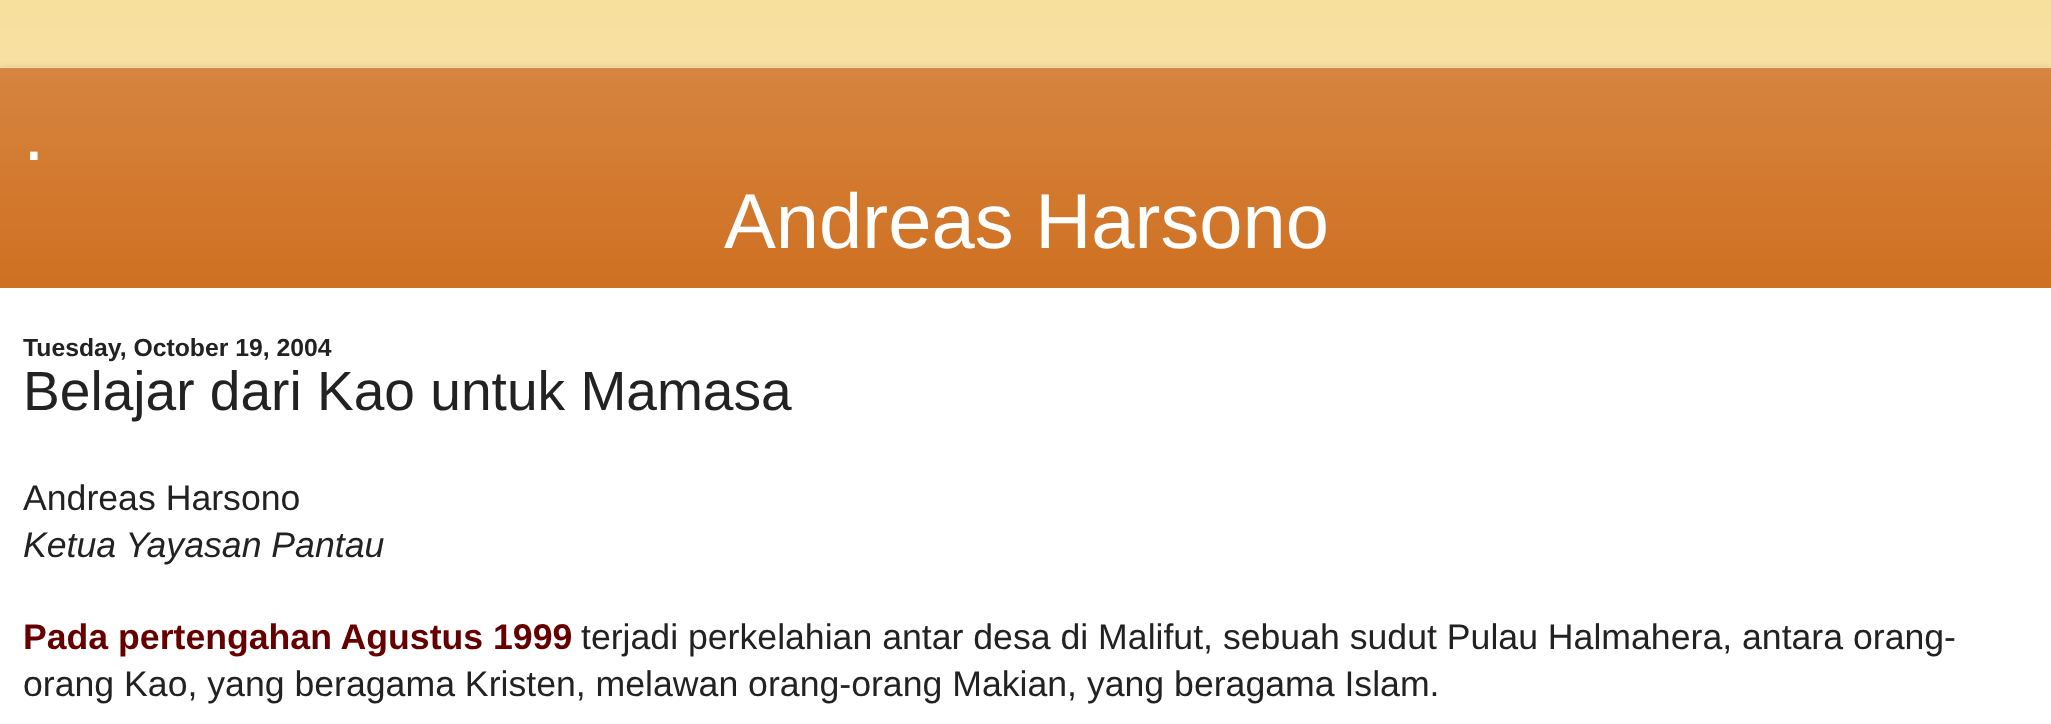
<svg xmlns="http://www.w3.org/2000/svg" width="2051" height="724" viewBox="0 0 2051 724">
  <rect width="100%" height="100%" fill="rgb(247,222,153)"/>
  <image x="0" y="0" width="2051" height="68" href="pic1.png"/>
  <rect x="0" y="68" width="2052" height="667" fill="rgba(0,0,0,0.15)" filter="blur(3.5px)"/>
  <rect x="0" y="288" width="2051" height="436" fill="rgb(255,255,255)"/>
  <rect x="0" y="68" width="2051" height="220" fill="rgb(204,102,17)"/>
  <image x="0" y="67" width="2051" height="221" href="pic2.png"/>
  <g font-family="Liberation Sans" font-size="77.75" fill="rgb(255,255,255)">
    <text x="23" y="160">.</text>
    <text x="724" y="248">Andreas Harsono</text>
  </g>
  <text x="23" y="356" font-family="Liberation Sans" font-size="24.75" font-weight="bold" fill="rgb(34,34,34)">Tuesday, October 19, 2004</text>
  <text x="23" y="410" font-family="Liberation Sans" font-size="55.1" fill="rgb(34,34,34)">Belajar dari Kao untuk Mamasa</text>
  <text x="23" y="510" font-family="Liberation Sans" font-size="35.65" fill="rgb(34,34,34)">Andreas Harsono</text>
  <text x="23" y="557" font-family="Liberation Sans" font-size="35.65" font-style="italic" fill="rgb(34,34,34)">Ketua Yayasan Pantau</text>
  <text x="23" y="649" font-family="Liberation Sans" font-size="35.65" font-weight="bold" fill="rgb(102,0,0)">Pada pertengahan Agustus 1999</text>
  <g font-family="Liberation Sans" font-size="35.65" fill="rgb(34,34,34)">
    <text x="581" y="649">terjadi perkelahian antar desa di Malifut, sebuah sudut Pulau Halmahera, antara orang-</text>
    <text x="23" y="696">orang Kao, yang beragama Kristen, melawan orang-orang Makian, yang beragama Islam.</text>
  </g>
</svg>
